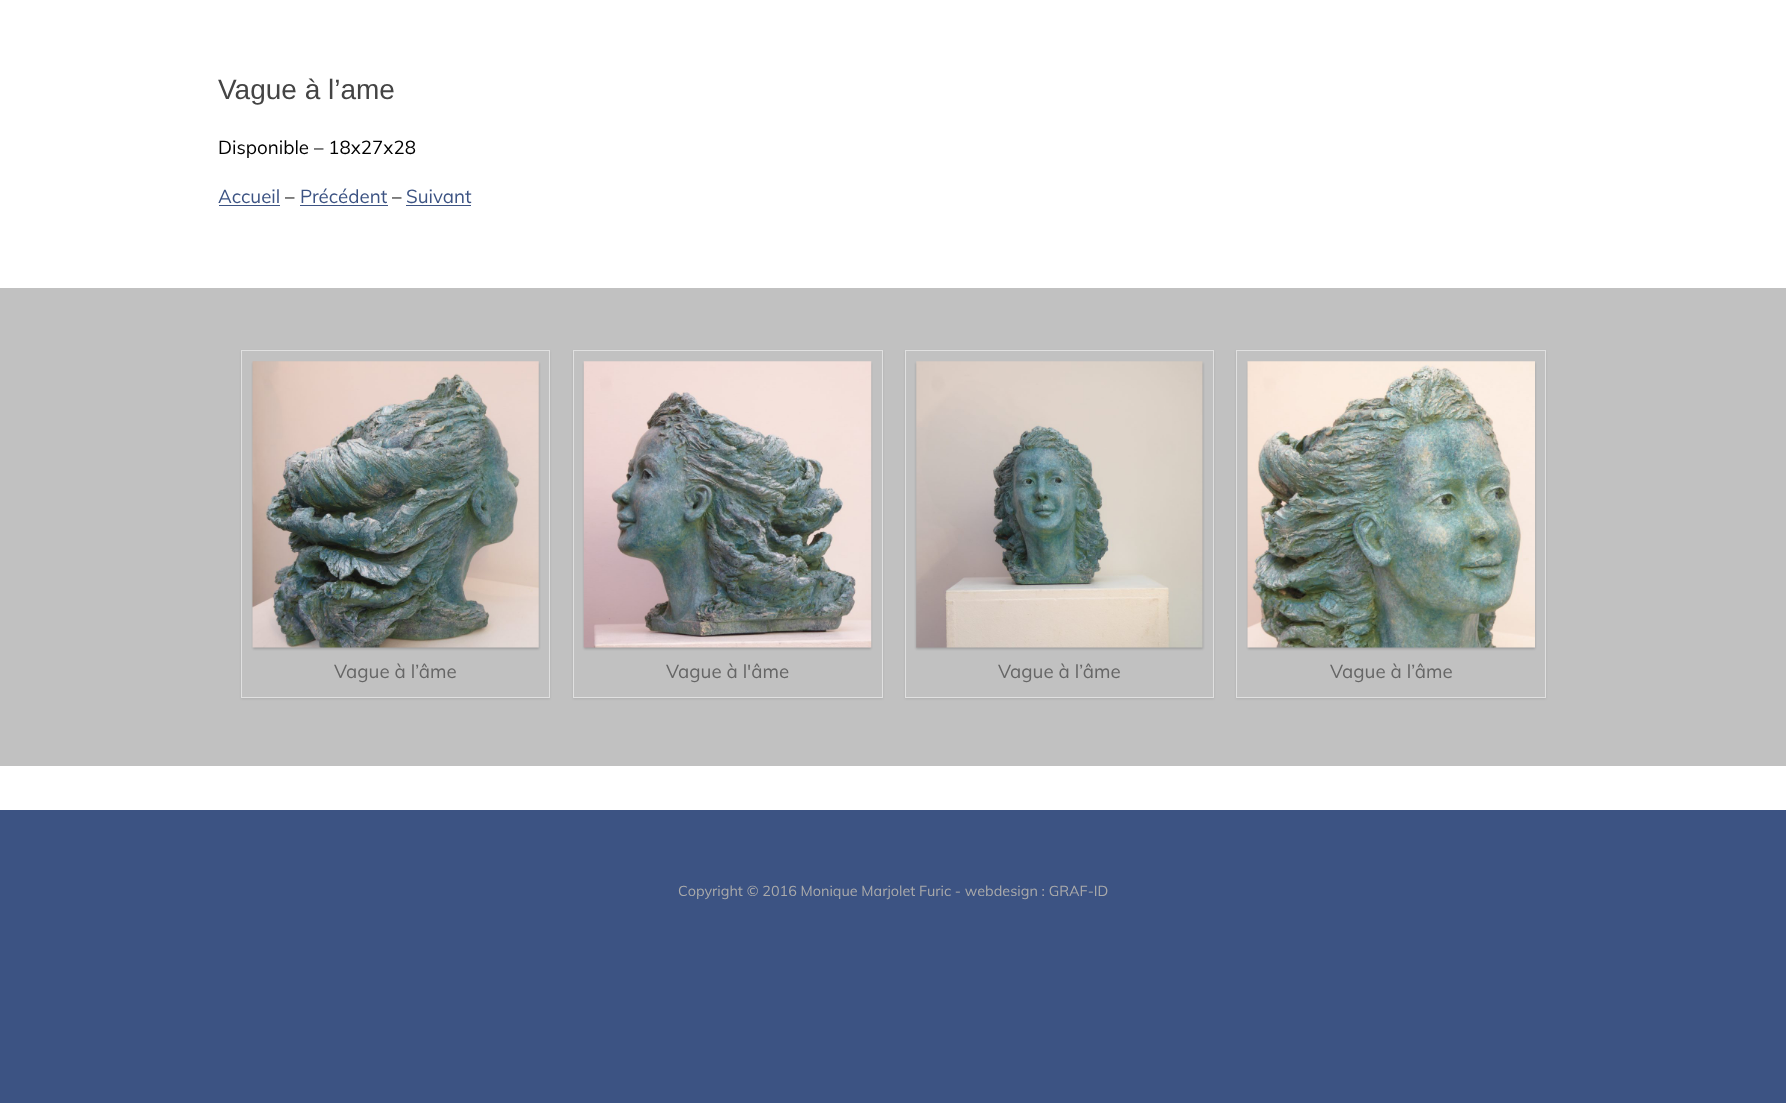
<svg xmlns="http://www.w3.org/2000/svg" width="1786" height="1103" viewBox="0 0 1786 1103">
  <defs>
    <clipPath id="clip1"><path d="M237 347H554V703H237ZM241 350H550V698H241Z" clip-rule="evenodd"/></clipPath>
    <clipPath id="clip2"><path d="M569 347H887V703H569ZM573 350H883V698H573Z" clip-rule="evenodd"/></clipPath>
    <clipPath id="clip3"><path d="M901 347H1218V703H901ZM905 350H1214V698H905Z" clip-rule="evenodd"/></clipPath>
    <clipPath id="clip4"><path d="M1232 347H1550V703H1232ZM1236 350H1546V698H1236Z" clip-rule="evenodd"/></clipPath>
  </defs>
  <rect width="100%" height="100%" fill="rgb(60,83,131)"/>
  <rect x="0" y="0" width="1786" height="810" fill="rgb(255,255,255)"/>
  <text x="218" y="99" font-family="Liberation Sans" font-size="28" fill="rgb(68,68,68)">Vague à l’ame</text>
  <text x="218" y="154" font-family="Muli" font-size="18.75" fill="rgb(0,0,0)">Disponible – 18x27x28</text>
  <text x="218" y="203" font-family="Muli" font-size="18.75" fill="rgb(60,83,131)">Accueil</text>
  <rect x="219" y="205" width="61" height="1" fill="rgb(60,83,131)"/>
  <text x="285" y="203" font-family="Muli" font-size="18.75" fill="rgb(0,0,0)">–</text>
  <text x="300" y="203" font-family="Muli" font-size="18.75" fill="rgb(60,83,131)">Précédent</text>
  <rect x="300" y="205" width="88" height="1" fill="rgb(60,83,131)"/>
  <text x="392" y="203" font-family="Muli" font-size="18.75" fill="rgb(0,0,0)">–</text>
  <text x="406" y="203" font-family="Muli" font-size="18.75" fill="rgb(60,83,131)">Suivant</text>
  <rect x="406" y="205" width="65" height="1" fill="rgb(60,83,131)"/>
  <rect x="0" y="288" width="1786" height="478" fill="rgb(193,193,193)"/>
  <g clip-path="url(#clip1)">
    <rect x="241" y="351" width="309" height="348" fill="rgba(0,0,0,0.09)" filter="blur(1px)"/>
  </g>
  <rect x="241.5" y="350.5" width="308" height="347" fill="none" stroke="rgb(224,224,224)"/>
  <rect x="253" y="363" width="286" height="286" fill="rgba(0,0,0,0.18)" filter="blur(1px)"/>
  <image x="252" y="361" width="287" height="287" href="pic1.png"/>
  <text x="334" y="678" font-family="Muli" font-size="18.75" fill="rgb(102,102,102)">Vague à l’âme</text>
  <g clip-path="url(#clip2)">
    <rect x="573" y="351" width="310" height="348" fill="rgba(0,0,0,0.09)" filter="blur(1px)"/>
  </g>
  <rect x="573.5" y="350.5" width="309" height="347" fill="none" stroke="rgb(224,224,224)"/>
  <rect x="584" y="363" width="287" height="286" fill="rgba(0,0,0,0.18)" filter="blur(1px)"/>
  <image x="583" y="361" width="289" height="287" href="pic2.png"/>
  <text x="666" y="678" font-family="Muli" font-size="18.75" fill="rgb(102,102,102)">Vague à l'âme</text>
  <g clip-path="url(#clip3)">
    <rect x="905" y="351" width="309" height="348" fill="rgba(0,0,0,0.09)" filter="blur(1px)"/>
  </g>
  <rect x="905.5" y="350.5" width="308" height="347" fill="none" stroke="rgb(224,224,224)"/>
  <rect x="916" y="363" width="287" height="286" fill="rgba(0,0,0,0.18)" filter="blur(1px)"/>
  <image x="916" y="361" width="287" height="287" href="pic3.png"/>
  <text x="998" y="678" font-family="Muli" font-size="18.75" fill="rgb(102,102,102)">Vague à l’âme</text>
  <g clip-path="url(#clip4)">
    <rect x="1236" y="351" width="310" height="348" fill="rgba(0,0,0,0.09)" filter="blur(1px)"/>
  </g>
  <rect x="1236.5" y="350.5" width="309" height="347" fill="none" stroke="rgb(224,224,224)"/>
  <rect x="1248" y="363" width="287" height="286" fill="rgba(0,0,0,0.18)" filter="blur(1px)"/>
  <image x="1247" y="361" width="288" height="287" href="pic4.png"/>
  <text x="1330" y="678" font-family="Muli" font-size="18.75" fill="rgb(102,102,102)">Vague à l’âme</text>
  <text x="678" y="896" font-family="Muli" font-size="14.4" fill="rgb(170,170,170)">Copyright © 2016 Monique Marjolet Furic - webdesign : GRAF-ID</text>
</svg>
